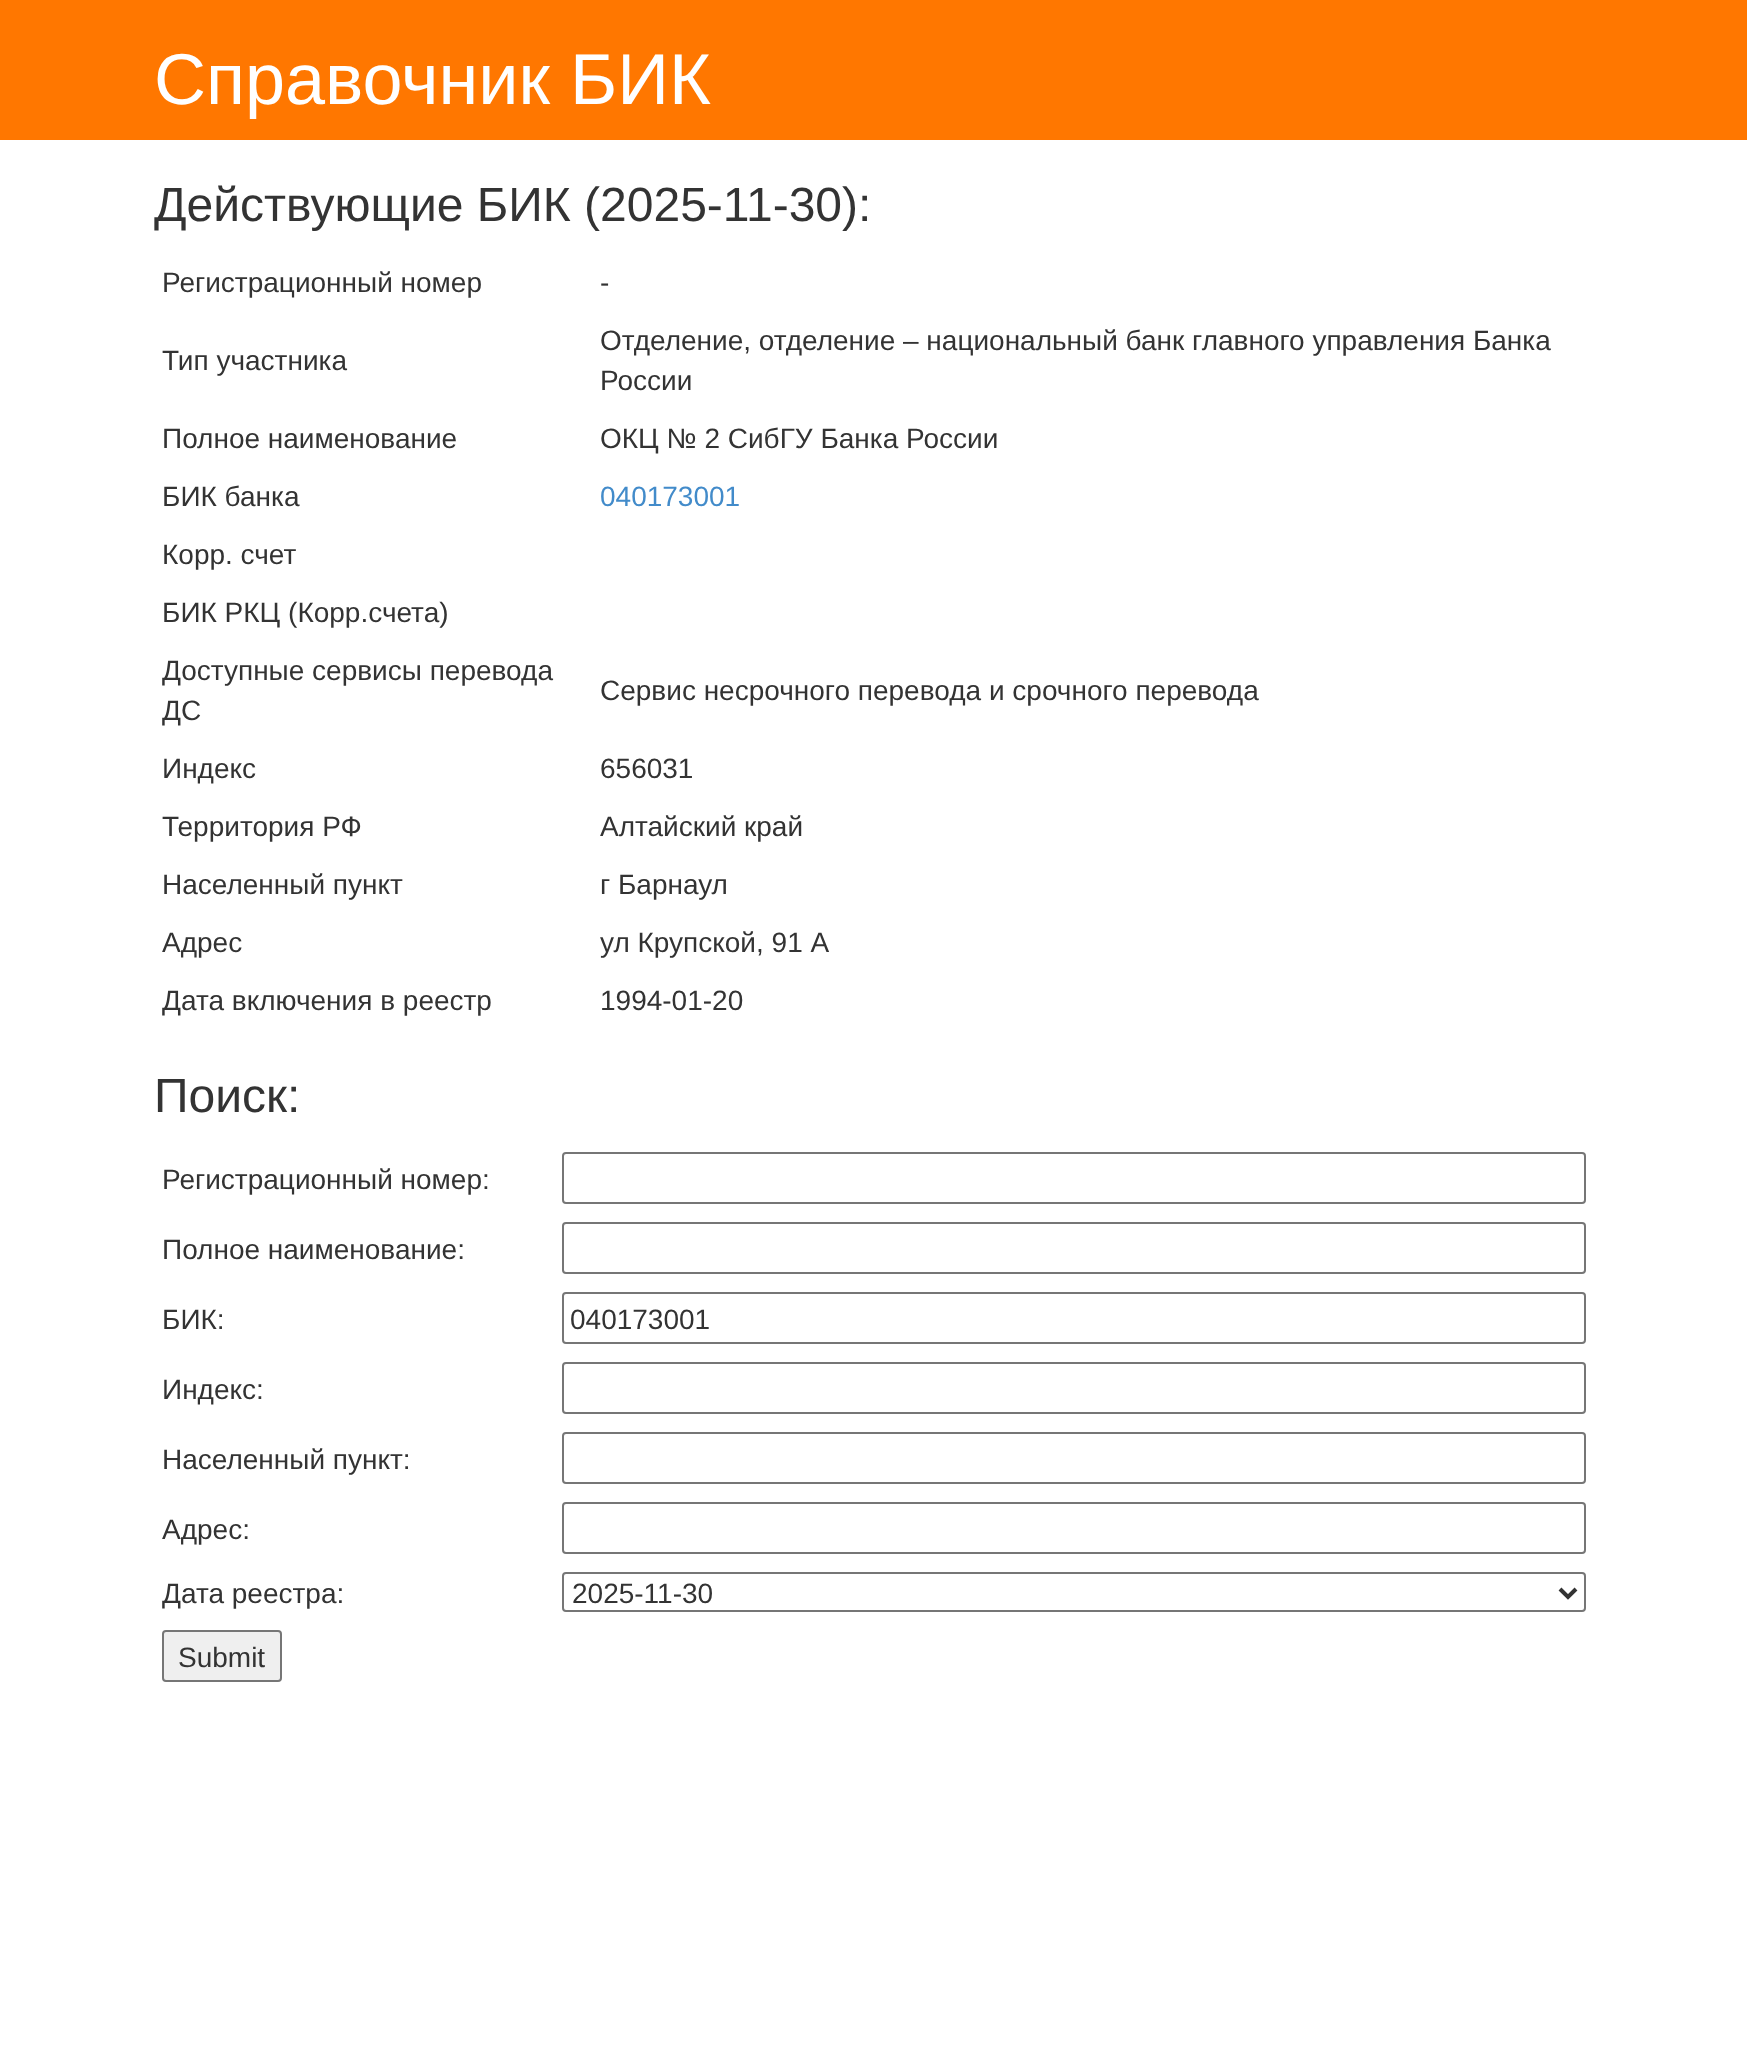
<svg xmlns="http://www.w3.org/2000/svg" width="1747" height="2051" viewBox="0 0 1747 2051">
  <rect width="100%" height="100%" fill="rgb(255,255,255)"/>
  <rect x="0" y="0" width="1747" height="140" fill="rgb(255,119,0)"/>
  <text x="154" y="104" font-family="Liberation Sans" font-size="72" fill="rgb(255,255,255)">Справочник БИК</text>
  <text x="154" y="221" font-family="Liberation Sans" font-size="48" fill="rgb(51,51,51)">Действующие БИК (2025-11-30):</text>
  <g font-family="Liberation Sans" font-size="28" fill="rgb(51,51,51)">
    <text x="162" y="292">Регистрационный номер</text>
    <text x="600" y="292">-</text>
    <text x="162" y="370">Тип участника</text>
    <text>
      <tspan x="600" y="350">Отделение, отделение – национальный банк главного управления Банка</tspan>
      <tspan x="600" y="390">России</tspan>
    </text>
    <text x="162" y="448">Полное наименование</text>
    <text x="600" y="448">ОКЦ № 2 СибГУ Банка России</text>
    <text x="162" y="506">БИК банка</text>
  </g>
  <text x="600" y="506" font-family="Liberation Sans" font-size="28" fill="rgb(66,139,202)">040173001</text>
  <g font-family="Liberation Sans" font-size="28" fill="rgb(51,51,51)">
    <text x="162" y="564">Корр. счет</text>
    <text x="162" y="622">БИК РКЦ (Корр.счета)</text>
    <text>
      <tspan x="162" y="680">Доступные сервисы перевода</tspan>
      <tspan x="162" y="720">ДС</tspan>
    </text>
    <text x="600" y="700">Сервис несрочного перевода и срочного перевода</text>
    <text x="162" y="778">Индекс</text>
    <text x="600" y="778">656031</text>
    <text x="162" y="836">Территория РФ</text>
    <text x="600" y="836">Алтайский край</text>
    <text x="162" y="894">Населенный пункт</text>
    <text x="600" y="894">г Барнаул</text>
    <text x="162" y="952">Адрес</text>
    <text x="600" y="952">ул Крупской, 91 А</text>
    <text x="162" y="1010">Дата включения в реестр</text>
    <text x="600" y="1010">1994-01-20</text>
  </g>
  <text x="154" y="1112" font-family="Liberation Sans" font-size="48" fill="rgb(51,51,51)">Поиск:</text>
  <text x="162" y="1189" font-family="Liberation Sans" font-size="28" fill="rgb(51,51,51)">Регистрационный номер:</text>
  <rect x="563" y="1153" width="1022" height="50" rx="3" fill="none" stroke="rgb(118,118,118)" stroke-width="2"/>
  <text x="162" y="1259" font-family="Liberation Sans" font-size="28" fill="rgb(51,51,51)">Полное наименование:</text>
  <rect x="563" y="1223" width="1022" height="50" rx="3" fill="none" stroke="rgb(118,118,118)" stroke-width="2"/>
  <text x="162" y="1329" font-family="Liberation Sans" font-size="28" fill="rgb(51,51,51)">БИК:</text>
  <rect x="563" y="1293" width="1022" height="50" rx="3" fill="none" stroke="rgb(118,118,118)" stroke-width="2"/>
  <g font-family="Liberation Sans" font-size="28" fill="rgb(51,51,51)">
    <text x="570" y="1329">040173001</text>
    <text x="162" y="1399">Индекс:</text>
  </g>
  <rect x="563" y="1363" width="1022" height="50" rx="3" fill="none" stroke="rgb(118,118,118)" stroke-width="2"/>
  <text x="162" y="1469" font-family="Liberation Sans" font-size="28" fill="rgb(51,51,51)">Населенный пункт:</text>
  <rect x="563" y="1433" width="1022" height="50" rx="3" fill="none" stroke="rgb(118,118,118)" stroke-width="2"/>
  <text x="162" y="1539" font-family="Liberation Sans" font-size="28" fill="rgb(51,51,51)">Адрес:</text>
  <rect x="563" y="1503" width="1022" height="50" rx="3" fill="none" stroke="rgb(118,118,118)" stroke-width="2"/>
  <text x="162" y="1603" font-family="Liberation Sans" font-size="28" fill="rgb(51,51,51)">Дата реестра:</text>
  <rect x="563" y="1573" width="1022" height="38" rx="3" fill="none" stroke="rgb(118,118,118)" stroke-width="2"/>
  <path d="M1560 1589L1568 1597L1576 1589" fill="none" stroke="rgb(51,51,51)" stroke-width="4"/>
  <text x="572" y="1603" font-family="Liberation Sans" font-size="28" fill="rgb(51,51,51)">2025-11-30</text>
  <rect x="163" y="1631" width="118" height="50" rx="3" fill="rgb(239,239,239)" stroke="rgb(118,118,118)" stroke-width="2"/>
  <text x="178" y="1667" font-family="Liberation Sans" font-size="28" fill="rgb(51,51,51)">Submit</text>
</svg>
